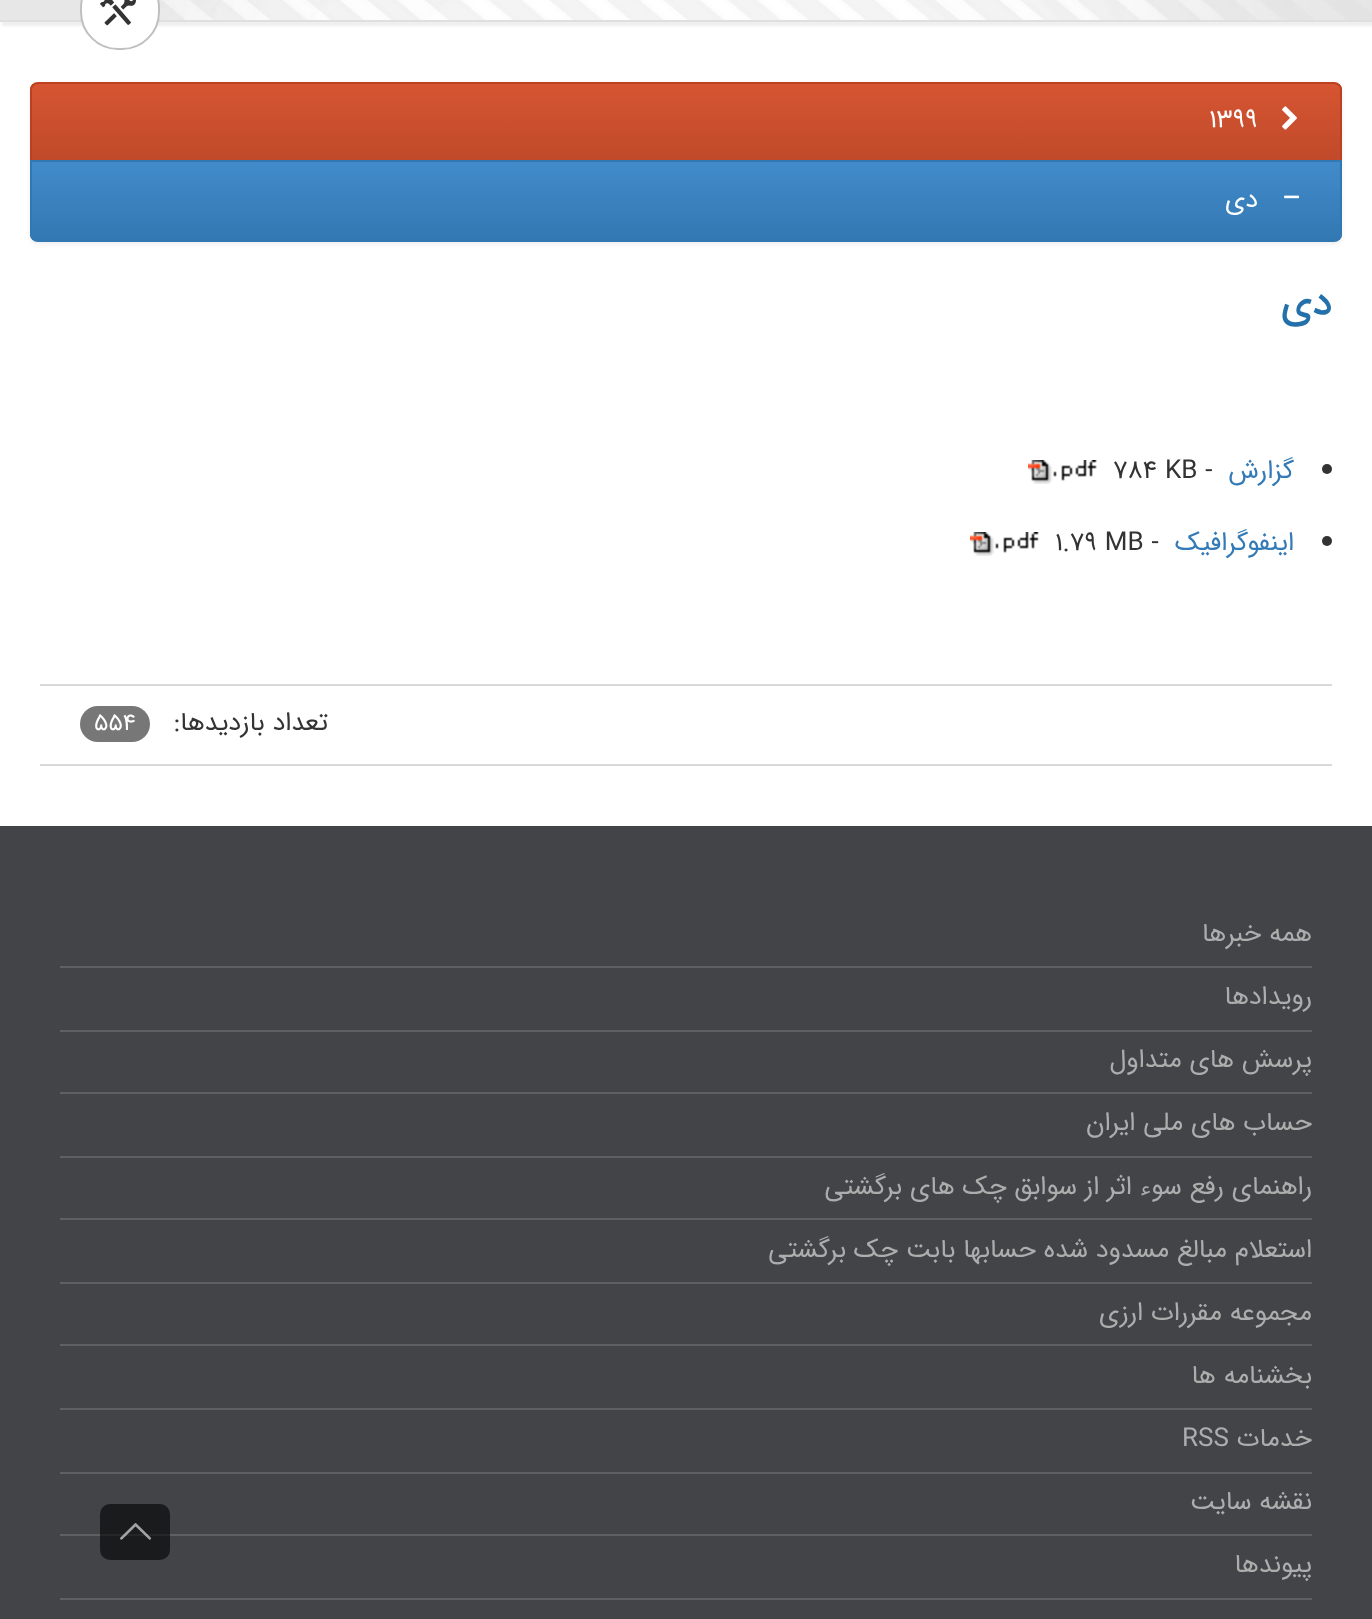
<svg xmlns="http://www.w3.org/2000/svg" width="1372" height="1619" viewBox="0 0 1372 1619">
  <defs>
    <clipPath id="clip1"><path d="M38 82H1334C1338.5 82 1342 85.5 1342 90V162H30V90C30 85.5 33.5 82 38 82Z"/></clipPath>
    <linearGradient id="g1" gradientUnits="userSpaceOnUse" x1="686" y1="84" x2="686" y2="160"><stop offset="0" stop-color="rgb(214,85,50)"/><stop offset="1" stop-color="rgb(192,74,42)"/></linearGradient>
    <clipPath id="clip2"><path d="M30 160H1342V234C1342 238.5 1338.5 242 1334 242H38C33.5 242 30 238.5 30 234Z"/></clipPath>
    <linearGradient id="g2" gradientUnits="userSpaceOnUse" x1="686" y1="162" x2="686" y2="240"><stop offset="0" stop-color="rgb(66,139,202)"/><stop offset="1" stop-color="rgb(50,120,179)"/></linearGradient>
  </defs>
  <rect width="100%" height="100%" fill="rgb(255,255,255)"/>
  <rect x="2" y="-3" width="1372" height="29" fill="rgb(239,239,239)" filter="blur(1px)"/>
  <rect x="0" y="0" width="1372" height="20" fill="rgb(231,231,231)"/>
  <image x="159" y="0" width="1213" height="20" href="pic1.png"/>
  <rect x="0" y="20" width="1372" height="2" fill="rgb(223,223,223)"/>
  <rect x="81" y="-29" width="78" height="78" rx="37" fill="rgb(255,255,255)" stroke="rgb(192,192,192)" stroke-width="2"/>
  <image x="100" y="0" width="36" height="26" href="pic2.png"/>
  <rect x="30" y="84" width="1312" height="160" rx="8" fill="rgba(0,0,0,0.07)" filter="blur(2px)"/>
  <g clip-path="url(#clip1)">
    <rect x="30" y="84" width="1312" height="76" fill="url(#g1)"/>
  </g>
  <path d="M38 83H1334C1338 83 1341 86 1341 90V161H31V90C31 86 34 83 38 83Z" fill="none" stroke="rgb(189,65,32)" stroke-width="2"/>
  <image x="1282" y="106" width="15" height="24" href="pic3.png"/>
  <text x="1209" y="127" font-family="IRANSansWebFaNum" font-size="26" fill="rgb(255,255,255)">1399</text>
  <g clip-path="url(#clip2)">
    <rect x="30" y="162" width="1312" height="78" fill="url(#g2)"/>
  </g>
  <path d="M31 161H1341V234C1341 238 1338 241 1334 241H38C34 241 31 238 31 234Z" fill="none" stroke="rgb(50,120,179)" stroke-width="2"/>
  <image x="1284" y="195" width="16" height="4" href="pic4.png"/>
  <text x="1258" y="207" font-family="IRANSansWebFaNum" font-size="26" direction="rtl" fill="rgb(255,255,255)">دی</text>
  <text x="1332" y="314" font-family="IRANSansWebFaNum" font-size="40" font-weight="500" direction="rtl" fill="rgb(36,112,171)">دی</text>
  <circle cx="1327" cy="469" r="5" fill="rgb(51,51,51)"/>
  <text x="1294" y="478" font-family="IRANSansWebFaNum" font-size="26" direction="rtl" fill="rgb(51,122,183)">گزارش</text>
  <text x="1113" y="478" font-family="IRANSansWebFaNum" font-size="26" fill="rgb(51,51,51)">784 KB -</text>
  <image x="1028" y="460" width="69" height="24" href="pic5.png"/>
  <circle cx="1327" cy="541" r="5" fill="rgb(51,51,51)"/>
  <text x="1294" y="550" font-family="IRANSansWebFaNum" font-size="26" direction="rtl" fill="rgb(51,122,183)">اینفوگرافیک</text>
  <text x="1055" y="550" font-family="IRANSansWebFaNum" font-size="26" fill="rgb(51,51,51)">1.79 MB -</text>
  <image x="970" y="532" width="69" height="24" href="pic5.png"/>
  <rect x="40" y="684" width="1292" height="2" fill="rgb(217,217,217)"/>
  <rect x="40" y="764" width="1292" height="2" fill="rgb(217,217,217)"/>
  <text x="328" y="730" font-family="IRANSansWebFaNum" font-size="26" direction="rtl" fill="rgb(51,51,51)">تعداد بازديدها:</text>
  <rect x="80" y="706" width="70" height="36" rx="18" fill="rgb(119,119,119)"/>
  <text x="94" y="730" font-family="IRANSansWebFaNum" font-size="24" fill="rgb(255,255,255)">554</text>
  <rect x="0" y="826" width="1372" height="793" fill="rgb(66,68,71)"/>
  <rect x="60" y="966" width="1252" height="2" fill="rgb(95,96,97)"/>
  <text x="1312" y="941" font-family="IRANSansWebFaNum" font-size="26" direction="rtl" fill="rgb(173,173,173)">همه خبرها</text>
  <rect x="60" y="1030" width="1252" height="2" fill="rgb(95,96,97)"/>
  <text x="1312" y="1004" font-family="IRANSansWebFaNum" font-size="26" direction="rtl" fill="rgb(173,173,173)">رویدادها</text>
  <rect x="60" y="1092" width="1252" height="2" fill="rgb(95,96,97)"/>
  <text x="1312" y="1067" font-family="IRANSansWebFaNum" font-size="26" direction="rtl" fill="rgb(173,173,173)">پرسش های متداول</text>
  <rect x="60" y="1156" width="1252" height="2" fill="rgb(95,96,97)"/>
  <text x="1312" y="1130" font-family="IRANSansWebFaNum" font-size="26" direction="rtl" fill="rgb(173,173,173)">حساب های ملی ایران</text>
  <rect x="60" y="1218" width="1252" height="2" fill="rgb(95,96,97)"/>
  <text x="1312" y="1194" font-family="IRANSansWebFaNum" font-size="26" direction="rtl" fill="rgb(173,173,173)">راهنمای رفع سوء اثر از سوابق چک های برگشتی</text>
  <rect x="60" y="1282" width="1252" height="2" fill="rgb(95,96,97)"/>
  <text x="1312" y="1257" font-family="IRANSansWebFaNum" font-size="26" direction="rtl" fill="rgb(173,173,173)">استعلام مبالغ مسدود شده حسابها بابت چک برگشتی</text>
  <rect x="60" y="1344" width="1252" height="2" fill="rgb(95,96,97)"/>
  <text x="1312" y="1320" font-family="IRANSansWebFaNum" font-size="26" direction="rtl" fill="rgb(173,173,173)">مجموعه مقررات ارزی</text>
  <rect x="60" y="1408" width="1252" height="2" fill="rgb(95,96,97)"/>
  <text x="1312" y="1383" font-family="IRANSansWebFaNum" font-size="26" direction="rtl" fill="rgb(173,173,173)">بخشنامه ها</text>
  <rect x="60" y="1472" width="1252" height="2" fill="rgb(95,96,97)"/>
  <text x="1312" y="1446" font-family="IRANSansWebFaNum" font-size="26" direction="rtl" fill="rgb(173,173,173)">خدمات</text>
  <text x="1182" y="1446" font-family="IRANSansWebFaNum" font-size="26" fill="rgb(173,173,173)">RSS</text>
  <rect x="60" y="1534" width="1252" height="2" fill="rgb(95,96,97)"/>
  <text x="1312" y="1509" font-family="IRANSansWebFaNum" font-size="26" direction="rtl" fill="rgb(173,173,173)">نقشه سایت</text>
  <rect x="60" y="1598" width="1252" height="2" fill="rgb(95,96,97)"/>
  <text x="1312" y="1572" font-family="IRANSansWebFaNum" font-size="26" direction="rtl" fill="rgb(173,173,173)">پیوندها</text>
  <rect x="100" y="1504" width="70" height="56" rx="10" fill="rgba(0,0,0,0.6)"/>
  <image x="120" y="1523" width="32" height="17" href="pic6.png"/>
</svg>
